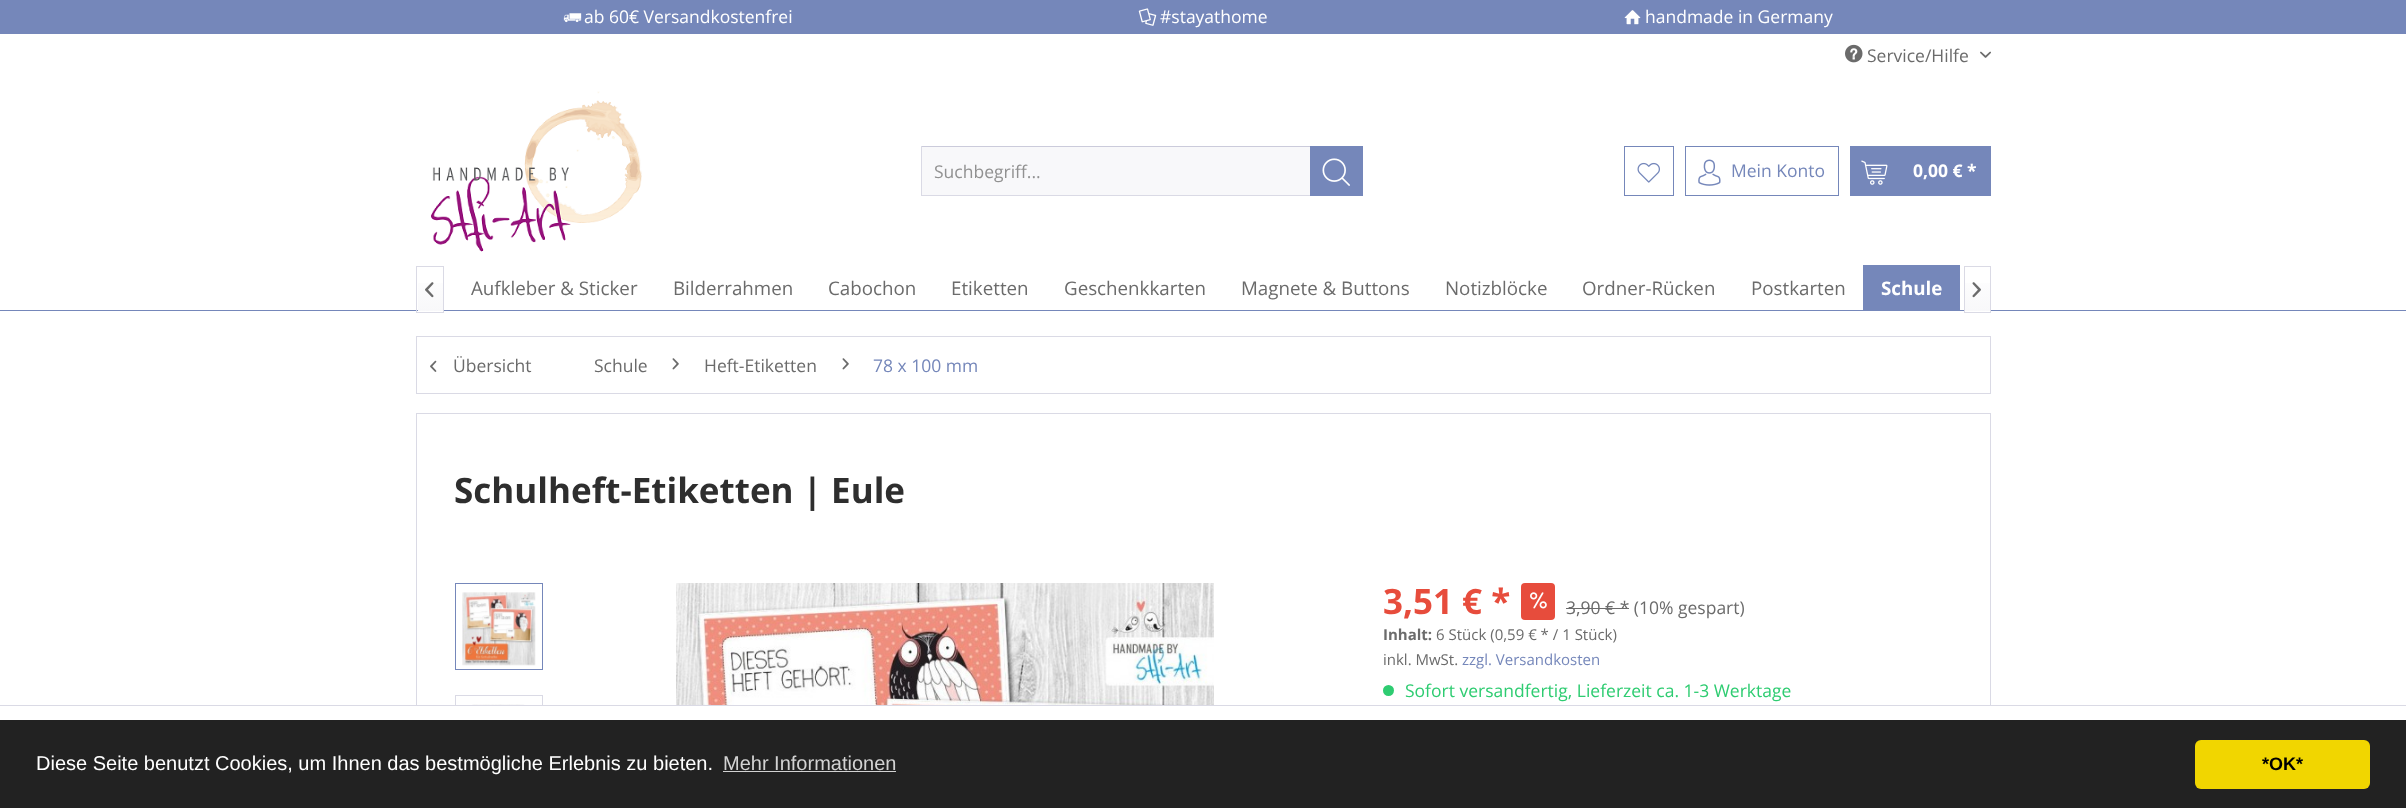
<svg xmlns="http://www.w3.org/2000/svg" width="2406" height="808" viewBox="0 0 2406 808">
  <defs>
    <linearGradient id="g1" gradientUnits="userSpaceOnUse" x1="430" y1="268" x2="430" y2="311"><stop offset="0" stop-color="rgb(255,255,255)"/><stop offset="1" stop-color="rgb(248,248,250)"/></linearGradient>
    <linearGradient id="g2" gradientUnits="userSpaceOnUse" x1="1978" y1="268" x2="1978" y2="311"><stop offset="0" stop-color="rgb(255,255,255)"/><stop offset="1" stop-color="rgb(248,248,250)"/></linearGradient>
  </defs>
  <rect width="100%" height="100%" fill="rgb(255,255,255)"/>
  <rect x="0" y="0" width="2406" height="34" fill="rgb(117,135,186)"/>
  <image x="563" y="13" width="19" height="10" href="pic1.png"/>
  <text x="584" y="23" font-family="Open Sans" font-size="17.5" fill="rgb(255,255,255)">ab 60€ Versandkostenfrei</text>
  <image x="1138" y="8" width="19" height="18" href="pic2.png"/>
  <text x="1160" y="23" font-family="Open Sans" font-size="17.5" fill="rgb(255,255,255)">#stayathome</text>
  <image x="1624" y="10" width="17" height="15" href="pic3.png"/>
  <text x="1645" y="23" font-family="Open Sans" font-size="17.5" fill="rgb(255,255,255)">handmade in Germany</text>
  <image x="1845" y="44" width="18" height="19" href="pic4.png"/>
  <text x="1867" y="62" font-family="Open Sans" font-size="17.5" fill="rgb(107,107,107)">Service/Hilfe</text>
  <image x="1980" y="51" width="11" height="7" href="pic5.png"/>
  <image x="431" y="91" width="211" height="161" href="pic6.png"/>
  <rect x="922" y="147" width="388" height="48" fill="rgb(248,248,250)"/>
  <rect x="921" y="146" width="389" height="1" fill="rgb(203,203,219)"/>
  <rect x="921" y="195" width="389" height="1" fill="rgb(218,218,229)"/>
  <rect x="921" y="146" width="1" height="50" fill="rgb(218,218,229)"/>
  <text x="934" y="178" font-family="Open Sans" font-size="17.5" fill="rgb(145,145,145)">Suchbegriff...</text>
  <rect x="1310" y="146" width="53" height="50" fill="rgb(117,135,186)"/>
  <image x="1322" y="158" width="28" height="28" href="pic7.png"/>
  <rect x="1624.5" y="146.5" width="49" height="49" fill="none" stroke="rgb(117,135,186)"/>
  <image x="1637" y="162" width="23" height="21" href="pic8.png"/>
  <rect x="1685.5" y="146.5" width="153" height="49" fill="none" stroke="rgb(117,135,186)"/>
  <image x="1698" y="159" width="23" height="27" href="pic9.png"/>
  <text x="1731" y="177" font-family="Open Sans" font-size="17.5" fill="rgb(117,135,186)">Mein Konto</text>
  <rect x="1850" y="146" width="141" height="50" fill="rgb(117,135,186)"/>
  <image x="1861" y="160" width="27" height="25" href="pic10.png"/>
  <text x="1913" y="177" font-family="Open Sans" font-size="17.5" font-weight="bold" fill="rgb(255,255,255)">0,00 € *</text>
  <rect x="0" y="310" width="2406" height="1" fill="rgb(117,135,186)"/>
  <rect x="418" y="283" width="25" height="28" fill="url(#g1)"/>
  <rect x="416.5" y="266.5" width="27" height="46" fill="none" stroke="rgb(218,218,229)"/>
  <image x="425" y="282" width="9" height="16" href="pic11.png"/>
  <g font-family="Open Sans" font-size="18.75" fill="rgb(107,107,107)">
    <text x="471" y="295">Aufkleber &amp; Sticker</text>
    <text x="673" y="295">Bilderrahmen</text>
    <text x="828" y="295">Cabochon</text>
    <text x="951" y="295">Etiketten</text>
    <text x="1064" y="295">Geschenkkarten</text>
    <text x="1241" y="295">Magnete &amp; Buttons</text>
    <text x="1445" y="295">Notizblöcke</text>
    <text x="1582" y="295">Ordner-Rücken</text>
    <text x="1751" y="295">Postkarten</text>
  </g>
  <rect x="1863" y="265" width="97" height="45" fill="rgb(117,135,186)"/>
  <text x="1881" y="295" font-family="Open Sans" font-size="18.75" font-weight="bold" fill="rgb(255,255,255)">Schule</text>
  <rect x="1965" y="283" width="25" height="28" fill="url(#g2)"/>
  <rect x="1964.5" y="266.5" width="26" height="46" fill="none" stroke="rgb(218,218,229)"/>
  <image x="1972" y="282" width="9" height="16" href="pic12.png"/>
  <rect x="416.5" y="336.5" width="1574" height="57" fill="none" stroke="rgb(218,218,229)"/>
  <image x="430" y="360" width="7" height="12" href="pic13.png"/>
  <g font-family="Open Sans" font-size="17.5" fill="rgb(107,107,107)">
    <text x="453" y="372">Übersicht</text>
    <text x="594" y="372">Schule</text>
  </g>
  <image x="672" y="358" width="7" height="12" href="pic14.png"/>
  <text x="704" y="372" font-family="Open Sans" font-size="17.5" fill="rgb(107,107,107)">Heft-Etiketten</text>
  <image x="842" y="358" width="7" height="12" href="pic14.png"/>
  <text x="873" y="372" font-family="Open Sans" font-size="17.5" fill="rgb(117,135,186)">78 x 100 mm</text>
  <rect x="416" y="413" width="1575" height="1" fill="rgb(218,218,229)"/>
  <rect x="1990" y="413" width="1" height="292" fill="rgb(218,218,229)"/>
  <rect x="416" y="413" width="1" height="292" fill="rgb(218,218,229)"/>
  <text x="454" y="503" font-family="Open Sans" font-size="35" font-weight="bold" fill="rgb(46,46,46)">Schulheft-Etiketten | Eule</text>
  <rect x="455.5" y="583.5" width="87" height="86" fill="none" stroke="rgb(117,135,186)"/>
  <image x="462" y="592" width="74" height="74" href="pic15.png"/>
  <rect x="455.5" y="695.5" width="87" height="87" fill="none" stroke="rgb(218,218,229)"/>
  <image x="472" y="704" width="53" height="1" href="pic16.png"/>
  <image x="676" y="583" width="538" height="122" href="pic17.png"/>
  <text x="1383" y="614" font-family="Open Sans" font-size="35" font-weight="bold" fill="rgb(231,76,60)">3,51 € *</text>
  <rect x="1521" y="583" width="34" height="37" rx="4" fill="rgb(231,76,60)"/>
  <image x="1530" y="592" width="17" height="17" href="pic18.png"/>
  <text x="1566" y="614" font-family="Open Sans" font-size="17.5" fill="rgb(107,107,107)">3,90 € * (10% gespart)</text>
  <rect x="1566" y="608" width="63" height="1" fill="rgb(107,107,107)"/>
  <text x="1383" y="640" font-family="Open Sans" font-size="15" font-weight="bold" fill="rgb(107,107,107)">Inhalt:</text>
  <g font-family="Open Sans" font-size="15" fill="rgb(107,107,107)">
    <text x="1436" y="640">6 Stück (0,59 € * / 1 Stück)</text>
    <text x="1383" y="665">inkl. MwSt.</text>
  </g>
  <text x="1462" y="665" font-family="Open Sans" font-size="15" fill="rgb(117,135,186)">zzgl. Versandkosten</text>
  <circle cx="1388.5" cy="690.5" r="5.5" fill="rgb(46,204,113)"/>
  <text x="1405" y="697" font-family="Open Sans" font-size="17.5" fill="rgb(46,204,113)">Sofort versandfertig, Lieferzeit ca. 1-3 Werktage</text>
  <rect x="455" y="706" width="88" height="14" fill="rgb(255,255,255)"/>
  <rect x="0" y="705" width="2406" height="1" fill="rgb(218,218,229)"/>
  <rect x="0" y="720" width="2406" height="88" fill="rgb(34,34,34)"/>
  <text x="36" y="770" font-family="Liberation Sans" font-size="20" fill="rgb(255,255,255)">Diese Seite benutzt Cookies, um Ihnen das bestmögliche Erlebnis zu bieten.</text>
  <text x="723" y="770" font-family="Liberation Sans" font-size="20" fill="rgb(211,211,211)">Mehr Informationen</text>
  <rect x="723" y="771" width="173" height="1" fill="rgb(211,211,211)"/>
  <rect x="2195" y="740" width="175" height="49" rx="6" fill="rgb(241,214,0)"/>
  <text x="2262" y="770" font-family="Liberation Sans" font-size="18" font-weight="bold" fill="rgb(0,0,0)">*OK*</text>
</svg>
